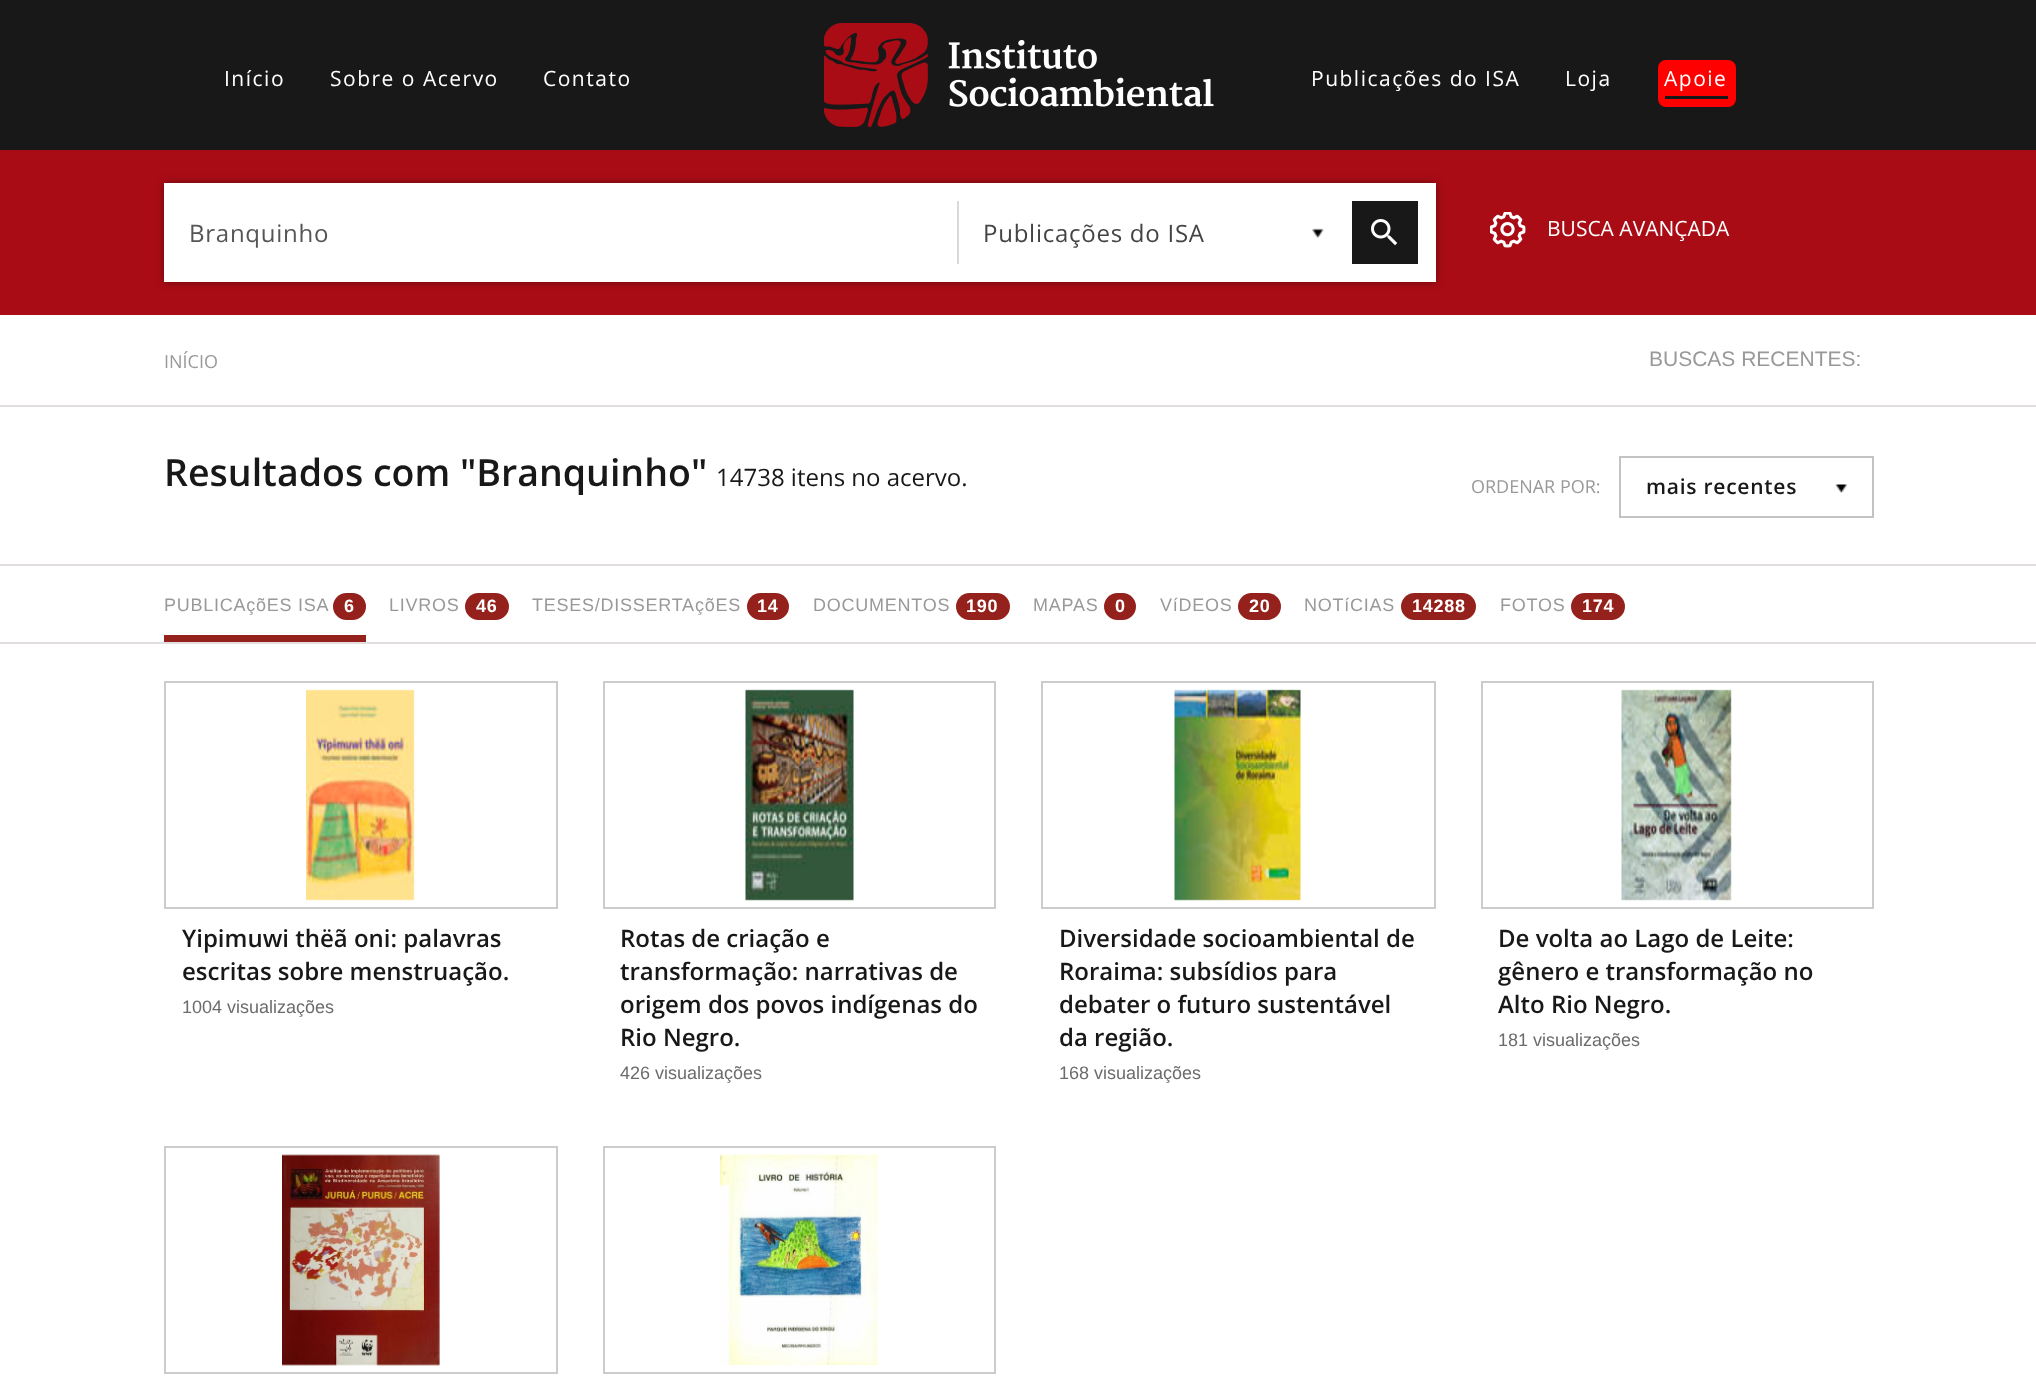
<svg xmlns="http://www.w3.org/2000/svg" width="2036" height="1392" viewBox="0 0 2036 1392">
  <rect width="100%" height="100%" fill="rgb(24,24,24)"/>
  <g font-family="Open Sans" font-size="21" letter-spacing="1.5" fill="rgb(255,255,255)">
    <text x="224" y="86">Início</text>
    <text x="330" y="86">Sobre o Acervo</text>
    <text x="543" y="86">Contato</text>
  </g>
  <image x="824" y="23" width="390" height="104" href="pic1.png"/>
  <g font-family="Open Sans" font-size="21" letter-spacing="1.5" fill="rgb(255,255,255)">
    <text x="1311" y="86">Publicações do ISA</text>
    <text x="1565" y="86">Loja</text>
  </g>
  <rect x="1658" y="60" width="78" height="47" rx="8" fill="rgb(255,0,0)"/>
  <rect x="1665" y="96" width="63" height="3" fill="rgb(24,24,24)"/>
  <text x="1664" y="86" font-family="Open Sans" font-size="21" letter-spacing="1.5" fill="rgb(255,255,255)">Apoie</text>
  <rect x="0" y="150" width="2036" height="165" fill="rgb(170,12,22)"/>
  <rect x="164" y="183" width="1272" height="99" fill="rgba(0,0,0,0.4)" filter="blur(4.5px)"/>
  <rect x="164" y="183" width="1272" height="99" fill="rgb(255,255,255)"/>
  <rect x="957" y="201" width="2" height="63" fill="rgb(217,217,217)"/>
  <text x="189" y="242" font-family="Open Sans" font-size="24" letter-spacing="0.75" fill="rgb(85,85,85)">Branquinho</text>
  <text x="983" y="242" font-family="Open Sans" font-size="24" letter-spacing="0.75" fill="rgb(68,68,68)">Publicações do ISA</text>
  <image x="1312" y="228" width="12" height="10" href="pic2.png"/>
  <rect x="1352" y="201" width="66" height="63" fill="rgb(24,24,24)"/>
  <image x="1371" y="219" width="27" height="27" href="pic3.png"/>
  <image x="1490" y="212" width="36" height="36" href="pic4.png"/>
  <text x="1547" y="236" font-family="Open Sans" font-size="21" fill="rgb(255,255,255)">BUSCA AVANÇADA</text>
  <rect x="0" y="315" width="2036" height="1077" fill="rgb(255,255,255)"/>
  <text x="164" y="368" font-family="Open Sans" font-size="18" fill="rgb(153,153,153)">INÍCIO</text>
  <text x="1649" y="366" font-family="Liberation Sans" font-size="21" fill="rgb(153,153,153)">BUSCAS RECENTES:</text>
  <rect x="0" y="405" width="2036" height="2" fill="rgb(226,222,222)"/>
  <text x="164" y="486" font-family="Open Sans" font-size="37.5" font-weight="600" fill="rgb(24,24,24)">Resultados com "Branquinho"</text>
  <text x="716" y="486" font-family="Open Sans" font-size="24" fill="rgb(24,24,24)">14738 itens no acervo.</text>
  <text x="1471" y="493" font-family="Open Sans" font-size="18" fill="rgb(153,153,153)">ORDENAR POR:</text>
  <rect x="1620" y="457" width="253" height="60" fill="none" stroke="rgb(195,195,195)" stroke-width="2"/>
  <text x="1646" y="494" font-family="Open Sans" font-size="21" font-weight="600" letter-spacing="0.75" fill="rgb(24,24,24)">mais recentes</text>
  <image x="1835" y="484" width="12" height="9" href="pic5.png"/>
  <rect x="0" y="564" width="2036" height="2" fill="rgb(226,222,222)"/>
  <rect x="164" y="635" width="202" height="7" fill="rgb(149,33,28)"/>
  <text x="164" y="611" font-family="Liberation Sans" font-size="18" letter-spacing="0.75" fill="rgb(153,153,153)">PUBLICAçõES ISA</text>
  <rect x="333" y="593" width="33" height="27" rx="13.5" fill="rgb(149,33,28)"/>
  <text x="344" y="612" font-family="Liberation Sans" font-size="18" font-weight="bold" letter-spacing="0.75" fill="rgb(255,255,255)">6</text>
  <text x="389" y="611" font-family="Liberation Sans" font-size="18" letter-spacing="0.75" fill="rgb(153,153,153)">LIVROS</text>
  <rect x="465" y="593" width="44" height="27" rx="13.5" fill="rgb(149,33,28)"/>
  <text x="476" y="612" font-family="Liberation Sans" font-size="18" font-weight="bold" letter-spacing="0.75" fill="rgb(255,255,255)">46</text>
  <text x="532" y="611" font-family="Liberation Sans" font-size="18" letter-spacing="0.75" fill="rgb(153,153,153)">TESES/DISSERTAçõES</text>
  <rect x="747" y="593" width="42" height="27" rx="13.5" fill="rgb(149,33,28)"/>
  <text x="757" y="612" font-family="Liberation Sans" font-size="18" font-weight="bold" letter-spacing="0.75" fill="rgb(255,255,255)">14</text>
  <text x="813" y="611" font-family="Liberation Sans" font-size="18" letter-spacing="0.75" fill="rgb(153,153,153)">DOCUMENTOS</text>
  <rect x="956" y="593" width="54" height="27" rx="13.5" fill="rgb(149,33,28)"/>
  <text x="966" y="612" font-family="Liberation Sans" font-size="18" font-weight="bold" letter-spacing="0.75" fill="rgb(255,255,255)">190</text>
  <text x="1033" y="611" font-family="Liberation Sans" font-size="18" letter-spacing="0.75" fill="rgb(153,153,153)">MAPAS</text>
  <rect x="1104" y="593" width="32" height="27" rx="13.5" fill="rgb(149,33,28)"/>
  <text x="1115" y="612" font-family="Liberation Sans" font-size="18" font-weight="bold" letter-spacing="0.75" fill="rgb(255,255,255)">0</text>
  <text x="1160" y="611" font-family="Liberation Sans" font-size="18" letter-spacing="0.75" fill="rgb(153,153,153)">VíDEOS</text>
  <rect x="1238" y="593" width="43" height="27" rx="13.5" fill="rgb(149,33,28)"/>
  <text x="1249" y="612" font-family="Liberation Sans" font-size="18" font-weight="bold" letter-spacing="0.75" fill="rgb(255,255,255)">20</text>
  <text x="1304" y="611" font-family="Liberation Sans" font-size="18" letter-spacing="0.75" fill="rgb(153,153,153)">NOTíCIAS</text>
  <rect x="1401" y="593" width="75" height="27" rx="13.5" fill="rgb(149,33,28)"/>
  <text x="1412" y="612" font-family="Liberation Sans" font-size="18" font-weight="bold" letter-spacing="0.75" fill="rgb(255,255,255)">14288</text>
  <text x="1500" y="611" font-family="Liberation Sans" font-size="18" letter-spacing="0.75" fill="rgb(153,153,153)">FOTOS</text>
  <rect x="1571" y="593" width="54" height="27" rx="13.5" fill="rgb(149,33,28)"/>
  <text x="1582" y="612" font-family="Liberation Sans" font-size="18" font-weight="bold" letter-spacing="0.75" fill="rgb(255,255,255)">174</text>
  <rect x="0" y="642" width="2036" height="2" fill="rgb(226,222,222)"/>
  <rect x="165" y="682" width="392" height="226" fill="none" stroke="rgb(204,204,204)" stroke-width="2"/>
  <image x="306" y="689" width="109" height="212" href="pic6.png"/>
  <g font-family="Open Sans" font-size="24" font-weight="600" fill="rgb(24,24,24)">
    <text>
      <tspan x="182" y="947">Yipimuwi thëã oni: palavras</tspan>
      <tspan x="182" y="980">escritas sobre menstruação.</tspan>
    </text>
  </g>
  <text x="182" y="1013" font-family="Liberation Sans" font-size="18" fill="rgb(108,108,108)">1004 visualizações</text>
  <rect x="604" y="682" width="391" height="226" fill="none" stroke="rgb(204,204,204)" stroke-width="2"/>
  <image x="745" y="689" width="109" height="212" href="pic7.png"/>
  <g font-family="Open Sans" font-size="24" font-weight="600" fill="rgb(24,24,24)">
    <text>
      <tspan x="620" y="947">Rotas de criação e</tspan>
      <tspan x="620" y="980">transformação: narrativas de</tspan>
      <tspan x="620" y="1013">origem dos povos indígenas do</tspan>
      <tspan x="620" y="1046">Rio Negro.</tspan>
    </text>
  </g>
  <text x="620" y="1079" font-family="Liberation Sans" font-size="18" fill="rgb(108,108,108)">426 visualizações</text>
  <rect x="1042" y="682" width="393" height="226" fill="none" stroke="rgb(204,204,204)" stroke-width="2"/>
  <image x="1174" y="689" width="127" height="212" href="pic8.png"/>
  <g font-family="Open Sans" font-size="24" font-weight="600" fill="rgb(24,24,24)">
    <text>
      <tspan x="1059" y="947">Diversidade socioambiental de</tspan>
      <tspan x="1059" y="980">Roraima: subsídios para</tspan>
      <tspan x="1059" y="1013">debater o futuro sustentável</tspan>
      <tspan x="1059" y="1046">da região.</tspan>
    </text>
  </g>
  <text x="1059" y="1079" font-family="Liberation Sans" font-size="18" fill="rgb(108,108,108)">168 visualizações</text>
  <rect x="1482" y="682" width="391" height="226" fill="none" stroke="rgb(204,204,204)" stroke-width="2"/>
  <image x="1621" y="689" width="111" height="212" href="pic9.png"/>
  <g font-family="Open Sans" font-size="24" font-weight="600" fill="rgb(24,24,24)">
    <text>
      <tspan x="1498" y="947">De volta ao Lago de Leite:</tspan>
      <tspan x="1498" y="980">gênero e transformação no</tspan>
      <tspan x="1498" y="1013">Alto Rio Negro.</tspan>
    </text>
  </g>
  <text x="1498" y="1046" font-family="Liberation Sans" font-size="18" fill="rgb(108,108,108)">181 visualizações</text>
  <rect x="165" y="1147" width="392" height="226" fill="none" stroke="rgb(204,204,204)" stroke-width="2"/>
  <image x="282" y="1154" width="158" height="212" href="pic10.png"/>
  <rect x="604" y="1147" width="391" height="226" fill="none" stroke="rgb(204,204,204)" stroke-width="2"/>
  <image x="720" y="1154" width="158" height="211" href="pic11.png"/>
</svg>
